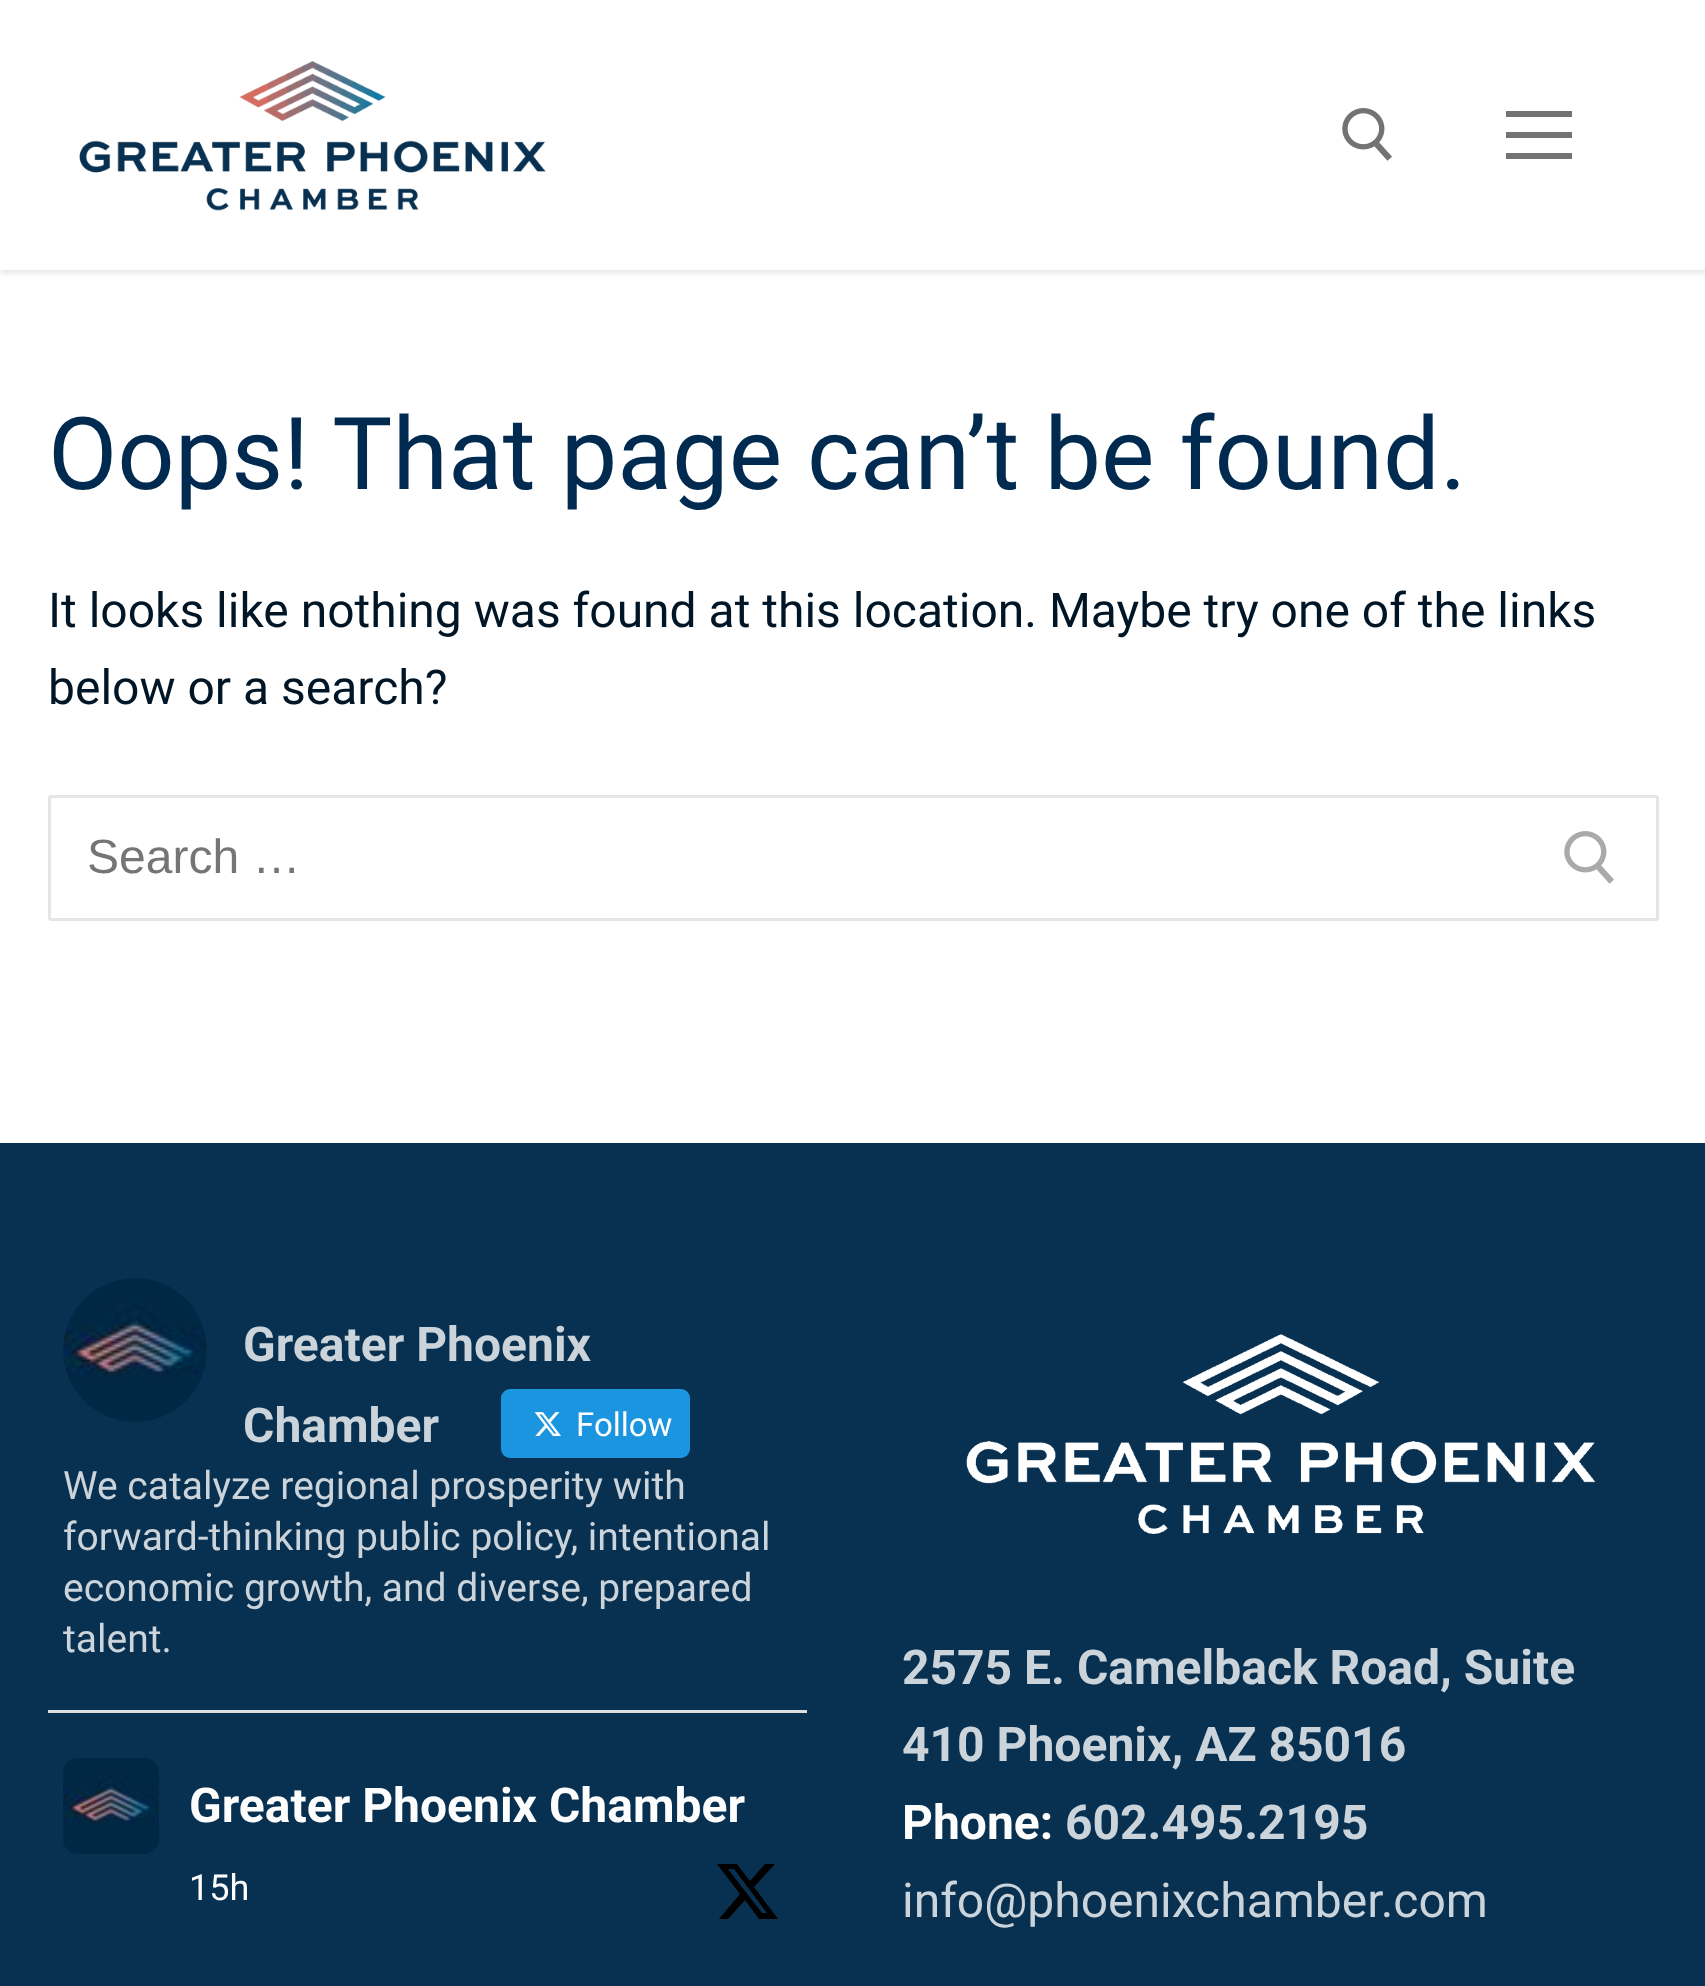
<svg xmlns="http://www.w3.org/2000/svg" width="1705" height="1986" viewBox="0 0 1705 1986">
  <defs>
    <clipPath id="clip1"><rect x="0" y="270" width="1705" height="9"/></clipPath>
  </defs>
  <rect width="100%" height="100%" fill="rgb(255,255,255)"/>
  <g clip-path="url(#clip1)">
    <rect x="0" y="3" width="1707" height="270" fill="rgb(225,229,234)" filter="blur(3px)"/>
  </g>
  <image x="79" y="61" width="467" height="150" href="pic1.png"/>
  <image x="1342" y="108" width="50" height="53" href="pic2.png"/>
  <rect x="1506" y="132" width="66" height="6" fill="rgb(115,115,115)"/>
  <rect x="1506" y="111" width="66" height="6" fill="rgb(115,115,115)"/>
  <rect x="1506" y="153" width="66" height="6" fill="rgb(115,115,115)"/>
  <text x="48" y="489" font-family="Roboto" font-size="100.75" fill="rgb(0,42,79)">Oops! That page can’t be found.</text>
  <g font-family="Roboto" font-size="48" fill="rgb(0,22,38)">
    <text>
      <tspan x="48" y="627">It looks like nothing was found at this location. Maybe try one of the links</tspan>
      <tspan x="48" y="704">below or a search?</tspan>
    </text>
  </g>
  <rect x="49.5" y="796.5" width="1608" height="123" rx="1.5" fill="none" stroke="rgb(229,229,229)" stroke-width="3"/>
  <text x="87" y="873" font-family="Liberation Sans" font-size="48" fill="rgb(117,117,117)">Search …</text>
  <image x="1564" y="831" width="50" height="53" href="pic3.png"/>
  <rect x="0" y="1143" width="1705" height="843" fill="rgb(8,48,80)"/>
  <rect x="48" y="1710" width="759" height="3" fill="rgb(221,221,221)"/>
  <image x="63" y="1278" width="144" height="144" href="pic4.png"/>
  <g font-family="Roboto" font-size="48" font-weight="bold" fill="rgb(203,212,218)">
    <text>
      <tspan x="243" y="1361">Greater Phoenix</tspan>
      <tspan x="243" y="1442">Chamber</tspan>
    </text>
  </g>
  <rect x="501" y="1389" width="189" height="69" rx="9" fill="rgb(27,149,224)"/>
  <image x="534" y="1412" width="27" height="24" href="pic5.png"/>
  <text x="576" y="1436" font-family="Roboto" font-size="33" fill="rgb(253,253,253)">Follow</text>
  <g font-family="Roboto" font-size="39" fill="rgb(203,212,218)">
    <text>
      <tspan x="63" y="1499">We catalyze regional prosperity with</tspan>
      <tspan x="63" y="1550">forward-thinking public policy, intentional</tspan>
      <tspan x="63" y="1601">economic growth, and diverse, prepared</tspan>
      <tspan x="63" y="1652">talent.</tspan>
    </text>
  </g>
  <image x="63" y="1758" width="96" height="96" href="pic6.png"/>
  <text x="189" y="1822" font-family="Roboto" font-size="48" font-weight="bold" fill="rgb(253,253,253)">Greater Phoenix Chamber</text>
  <text x="189" y="1900" font-family="Roboto" font-size="36" fill="rgb(253,253,253)">15h</text>
  <path d="M765 1864H775L754 1887L778 1919H759L745 1900L728 1919H719L740 1894L717 1864H737L750 1881ZM762 1913H767L734 1869H728Z" fill="rgb(0,0,0)"/>
  <image x="966" y="1334" width="630" height="200" href="pic7.png"/>
  <g font-family="Roboto" font-size="48" font-weight="bold" fill="rgb(203,212,218)">
    <text>
      <tspan x="902" y="1684">2575 E. Camelback Road, Suite</tspan>
      <tspan x="902" y="1761">410 Phoenix, AZ 85016</tspan>
    </text>
  </g>
  <text x="902" y="1839" font-family="Roboto" font-size="48" font-weight="bold" fill="rgb(253,253,253)">Phone:</text>
  <text x="1065" y="1839" font-family="Roboto" font-size="48" font-weight="bold" fill="rgb(203,212,218)">602.495.2195</text>
  <text x="902" y="1917" font-family="Roboto" font-size="48" fill="rgb(203,212,218)">info@phoenixchamber.com</text>
</svg>
